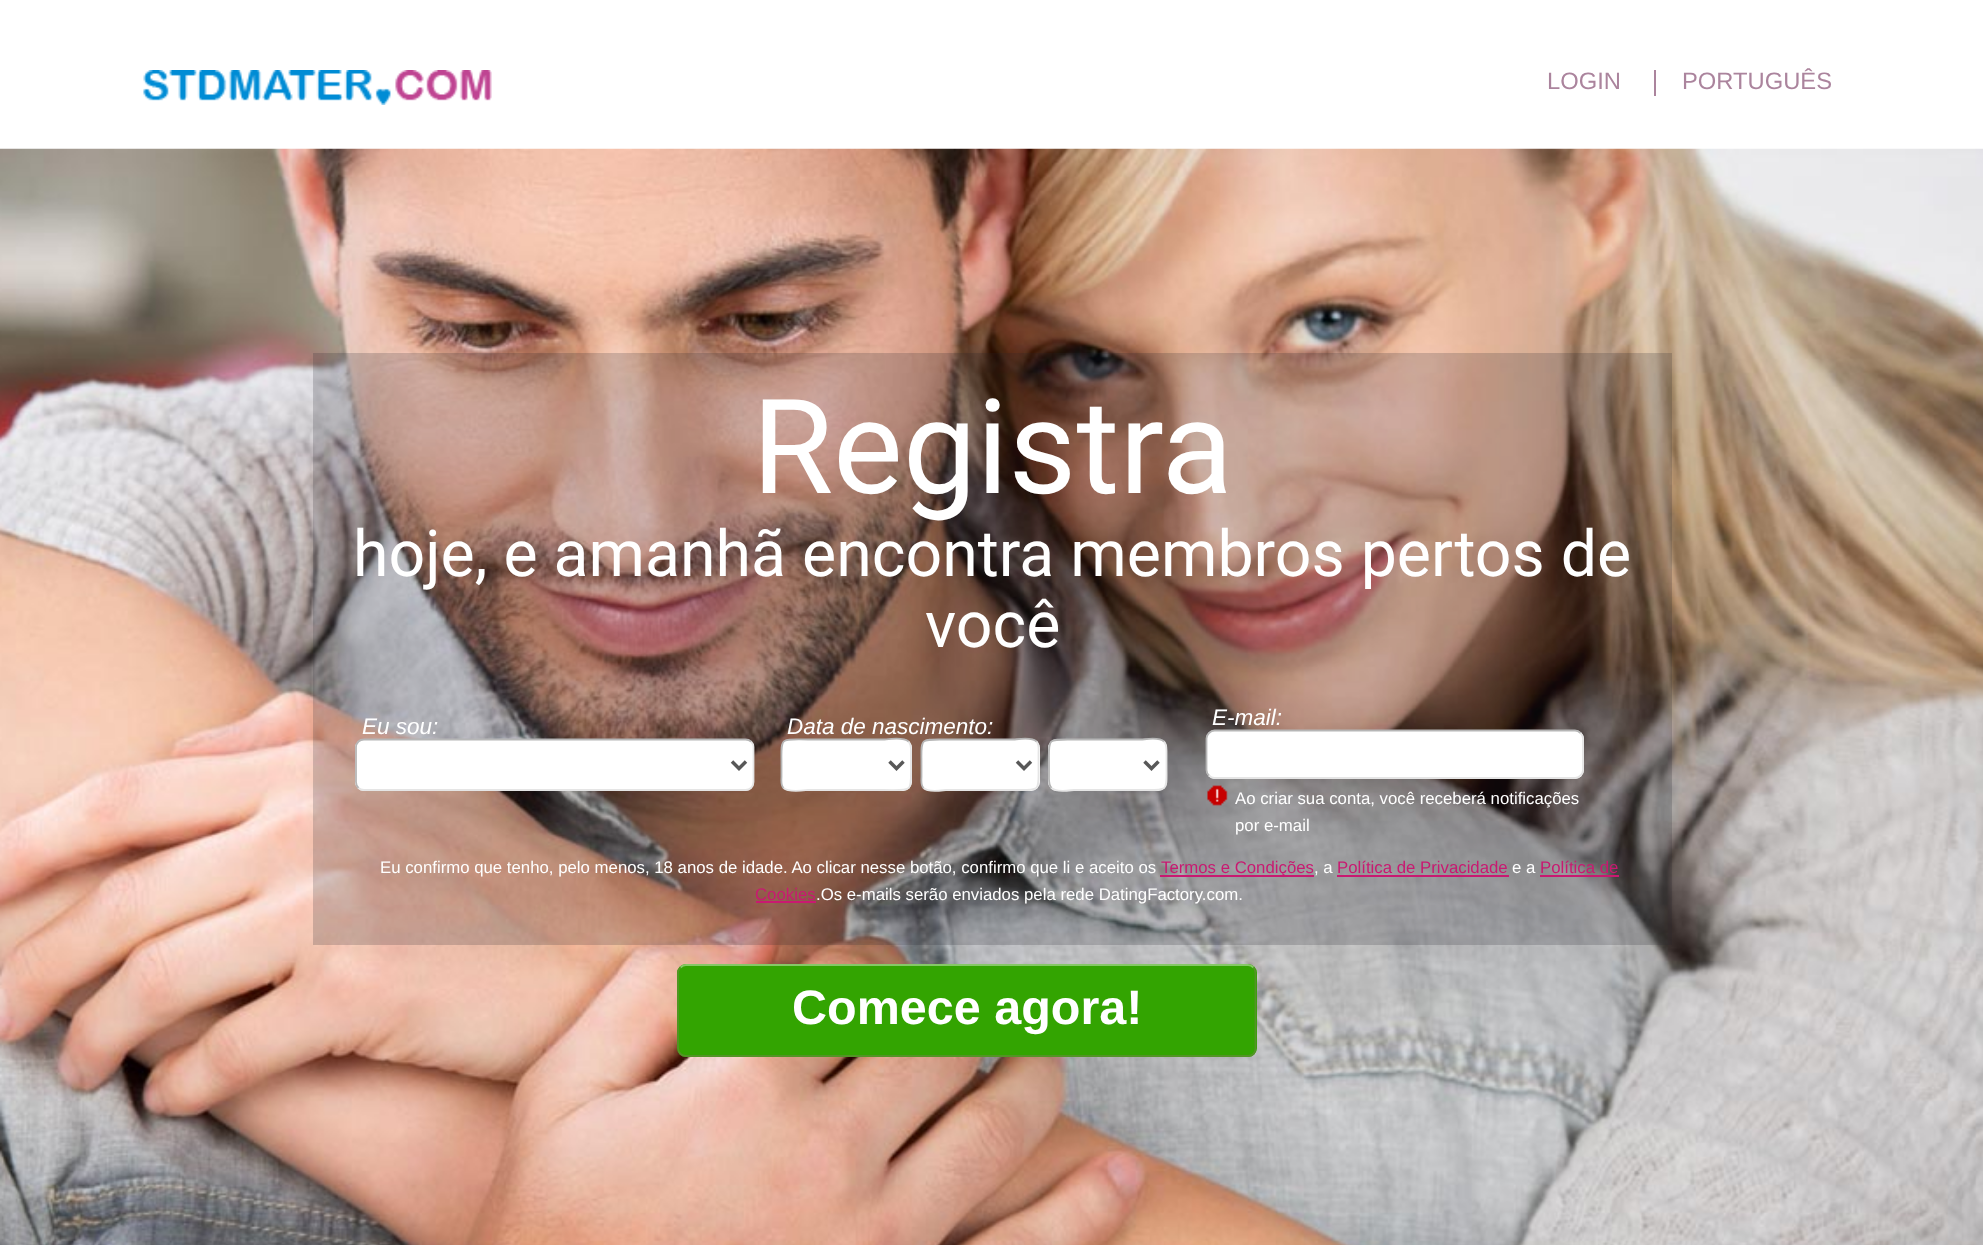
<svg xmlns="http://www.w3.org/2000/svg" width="1983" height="1245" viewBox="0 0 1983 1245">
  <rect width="100%" height="100%" fill="rgb(255,255,255)"/>
  <image x="143" y="70" width="349" height="35" href="pic1.png"/>
  <text x="1547" y="89" font-family="Liberation Sans" font-size="23.75" fill="rgb(171,132,157)">LOGIN</text>
  <rect x="1654" y="70" width="2" height="26" fill="rgb(171,132,157)"/>
  <text x="1682" y="89" font-family="Liberation Sans" font-size="23.75" fill="rgb(171,132,157)">PORTUGUÊS</text>
  <image x="0" y="148" width="1983" height="1097" href="pic2.png"/>
  <rect x="313" y="353" width="1359" height="592" fill="rgba(35,35,45,0.2)"/>
  <text x="752" y="493" font-family="Roboto" font-size="131.5" fill="rgb(255,255,255)">Registra</text>
  <g font-family="Roboto" font-size="64.4" fill="rgb(255,255,255)">
    <text x="353" y="576">hoje, e amanhã encontra membros pertos de</text>
    <text x="925" y="647">você</text>
  </g>
  <text x="362" y="734" font-family="Liberation Sans" font-size="22.5" font-style="italic" fill="rgb(255,255,255)">Eu sou:</text>
  <rect x="355" y="739" width="399" height="52" rx="9" fill="rgb(255,255,255)"/>
  <path d="M751 741.5C752.5 743 753.5 745 753.5 747V782C753.5 784.5 752.5 786.5 751 788C749.5 789.5 747.5 790 745.5 790H364C362 790 360 789.5 358.5 788" fill="none" stroke="rgb(229,229,229)" stroke-width="1.8"/>
  <path d="M358.5 788C357 786.5 356 784.5 356 782V747C356 745 357 743 358.5 741.5C360 740 362 739.5 364 739.5H745.5C747.5 739.5 749.5 740 751 741.5" fill="none" stroke="rgb(182,182,182)" stroke-width="1.8"/>
  <path d="M732 761.5L739 768.5L746 761.5" fill="none" stroke="rgb(88,88,88)" stroke-width="3.5"/>
  <text x="787" y="734" font-family="Liberation Sans" font-size="22.5" font-style="italic" fill="rgb(255,255,255)">Data de nascimento:</text>
  <rect x="781" y="739" width="131" height="52" rx="9" fill="rgb(255,255,255)"/>
  <path d="M908.5 741.5C911.5 744.5 911 749 911 753V765C911 793 913.5 790 884 790H808C806 790 789 793 783.5 788" fill="none" stroke="rgb(229,229,229)" stroke-width="1.8"/>
  <path d="M783.5 788C780.5 785 781.5 780.5 781.5 776.5V765C781.5 736.5 778.5 739.5 808 739.5H884C886 739.5 903.5 736.5 908.5 741.5" fill="none" stroke="rgb(182,182,182)" stroke-width="1.8"/>
  <path d="M889.5 761.5L896.5 768.5L903.5 761.5" fill="none" stroke="rgb(88,88,88)" stroke-width="3.5"/>
  <rect x="921" y="739" width="119" height="52" rx="9" fill="rgb(255,255,255)"/>
  <path d="M1036.5 741.5C1039.5 744.5 1038.5 749 1038.5 753V765C1038.5 792 1041.5 790 1014 790H946C943.5 790 928.5 793 923.5 788" fill="none" stroke="rgb(229,229,229)" stroke-width="1.8"/>
  <path d="M923.5 788C920.5 785 921.5 780.5 921.5 776.5V765C921.5 737.5 918.5 739.5 946 739.5H1014C1016.5 739.5 1031.5 736.5 1036.5 741.5" fill="none" stroke="rgb(182,182,182)" stroke-width="1.8"/>
  <path d="M1017 761.5L1024 768.5L1031 761.5" fill="none" stroke="rgb(88,88,88)" stroke-width="3.5"/>
  <rect x="1048" y="739" width="119" height="52" rx="9" fill="rgb(255,255,255)"/>
  <path d="M1164 741.5C1167 744.5 1166.5 749 1166.5 753V765C1166.5 792 1169.5 790 1141.5 790H1074C1071 790 1056.5 793 1051.5 788" fill="none" stroke="rgb(229,229,229)" stroke-width="1.8"/>
  <path d="M1051.5 788C1048.5 785 1049 780.5 1049 776.5V765C1049 737.5 1046 739.5 1074 739.5H1141.5C1144.5 739.5 1159 736.5 1164 741.5" fill="none" stroke="rgb(182,182,182)" stroke-width="1.8"/>
  <path d="M1144.5 761.5L1151.5 768.5L1158.5 761.5" fill="none" stroke="rgb(88,88,88)" stroke-width="3.5"/>
  <text x="1212" y="725" font-family="Liberation Sans" font-size="22.5" font-style="italic" fill="rgb(255,255,255)">E-mail:</text>
  <rect x="1206" y="730" width="378" height="49" rx="9" fill="rgb(255,255,255)"/>
  <path d="M1580.5 733C1582 734.5 1583 736.5 1583 738.5V770C1583 772 1582 774 1580.5 775.5C1579 777 1577 778 1575 778H1214.5C1212.5 778 1210.5 777 1209 775.5" fill="none" stroke="rgb(229,229,229)" stroke-width="1.8"/>
  <path d="M1209 775.5C1207.5 774 1206.5 772 1206.5 770V738.5C1206.5 736.5 1207.5 734.5 1209 733C1210.5 731.5 1212.5 730.5 1214.5 730.5H1575C1577 730.5 1579 731.5 1580.5 733" fill="none" stroke="rgb(182,182,182)" stroke-width="1.8"/>
  <image x="1207" y="785" width="21" height="21" href="pic3.png"/>
  <g font-family="Liberation Sans" font-size="16.8" fill="rgb(255,255,255)">
    <text>
      <tspan x="1235" y="804">Ao criar sua conta, você receberá notificações</tspan>
      <tspan x="1235" y="831">por e-mail</tspan>
    </text>
    <text x="380" y="873">Eu confirmo que tenho, pelo menos, 18 anos de idade. Ao clicar nesse botão, сonfirmo que li e aceito os</text>
  </g>
  <rect x="1160" y="875" width="154" height="2" fill="rgb(201,25,113)"/>
  <text x="1161" y="873" font-family="Liberation Sans" font-size="16.8" fill="rgb(201,25,113)">Termos e Condições</text>
  <text x="1314" y="873" font-family="Liberation Sans" font-size="16.8" fill="rgb(255,255,255)">, a</text>
  <text x="1337" y="873" font-family="Liberation Sans" font-size="16.8" fill="rgb(201,25,113)">Política de Privacidade</text>
  <rect x="1337" y="875" width="172" height="2" fill="rgb(201,25,113)"/>
  <text x="1512" y="873" font-family="Liberation Sans" font-size="16.8" fill="rgb(255,255,255)">e a</text>
  <text x="1540" y="873" font-family="Liberation Sans" font-size="16.8" fill="rgb(201,25,113)">Política de</text>
  <rect x="1540" y="875" width="79" height="2" fill="rgb(201,25,113)"/>
  <text x="755" y="900" font-family="Liberation Sans" font-size="16.8" fill="rgb(201,25,113)">Cookies</text>
  <rect x="756" y="901" width="60" height="2" fill="rgb(201,25,113)"/>
  <text x="816" y="900" font-family="Liberation Sans" font-size="16.8" fill="rgb(255,255,255)">.Os e-mails serão enviados pela rede DatingFactory.com.</text>
  <rect x="677" y="964" width="580" height="93" rx="9" fill="rgb(51,164,1)"/>
  <path d="M680.5 967.5C682 966 684 965 686 965H1248C1250 965 1252 966 1253.5 967.5" fill="none" stroke="rgb(133,200,103)" stroke-width="1.8"/>
  <path d="M1253.5 967.5C1255 969 1255.5 971 1255.5 973V1048C1255.5 1050.5 1255 1052.5 1253.5 1054C1252 1055.5 1250 1056 1248 1056H686C684 1056 682 1055.5 680.5 1054C679 1052.5 678 1050.5 678 1048V973C678 971 679 969 680.5 967.5" fill="none" stroke="rgb(83,148,38)" stroke-width="1.8"/>
  <text x="792" y="1024" font-family="Liberation Sans" font-size="48.5" font-weight="bold" fill="rgb(255,255,255)">Comece agora!</text>
</svg>
